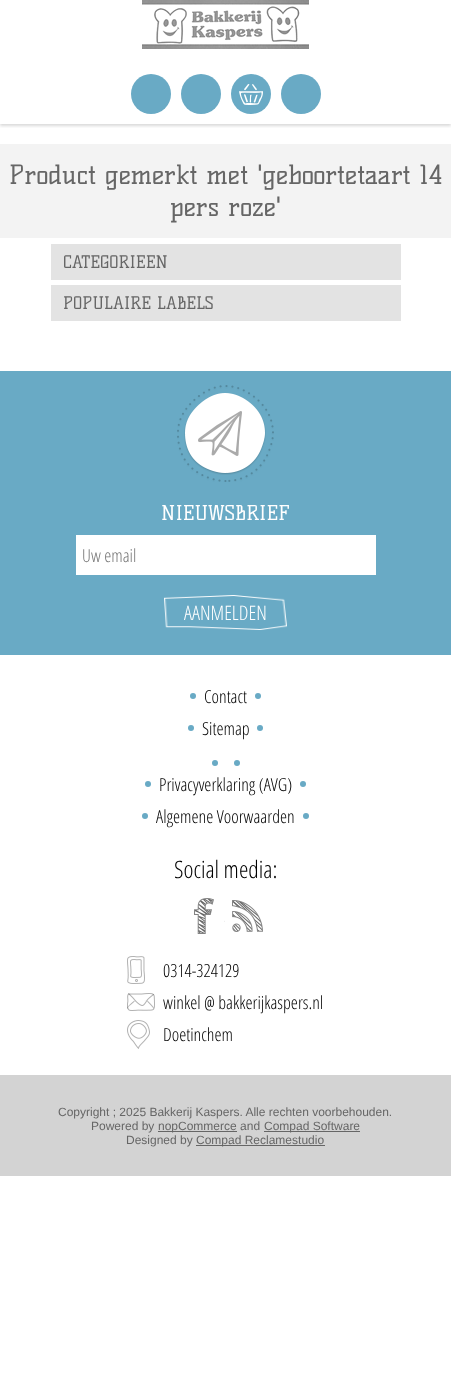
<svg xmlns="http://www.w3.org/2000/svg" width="451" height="1393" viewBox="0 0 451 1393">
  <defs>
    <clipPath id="clip1"><rect x="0" y="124" width="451" height="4"/></clipPath>
  </defs>
  <rect width="100%" height="100%" fill="rgb(255,255,255)"/>
  <image x="142" y="0" width="167" height="49" href="pic1.png"/>
  <g clip-path="url(#clip1)">
    <rect x="0" y="66" width="451" height="60" fill="rgba(0,0,0,0.15)" filter="blur(1.5px)"/>
  </g>
  <circle cx="151" cy="94" r="20" fill="rgb(105,170,197)"/>
  <circle cx="201" cy="94" r="20" fill="rgb(105,170,197)"/>
  <circle cx="251" cy="94" r="20" fill="rgb(105,170,197)"/>
  <image x="239" y="84" width="24" height="21" href="pic2.png"/>
  <circle cx="301" cy="94" r="20" fill="rgb(105,170,197)"/>
  <rect x="0" y="144" width="451" height="94" fill="rgb(243,243,243)"/>
  <g font-family="Kelly Slab" font-size="26" fill="rgb(102,102,102)">
    <text x="9" y="184">Product gemerkt met 'geboortetaart 14</text>
    <text x="170" y="216">pers roze'</text>
  </g>
  <rect x="51" y="244" width="350" height="36" fill="rgb(227,227,227)"/>
  <text x="63" y="268" font-family="Kelly Slab" font-size="17" fill="rgb(102,102,102)">CATEGORIEEN</text>
  <rect x="51" y="285" width="350" height="36" fill="rgb(227,227,227)"/>
  <text x="63" y="309" font-family="Kelly Slab" font-size="17" fill="rgb(102,102,102)">POPULAIRE LABELS</text>
  <rect x="0" y="371" width="451" height="284" fill="rgb(105,170,197)"/>
  <text x="161" y="520" font-family="Kelly Slab" font-size="20" fill="rgb(255,255,255)">NIEUWSBRIEF</text>
  <image x="177" y="385" width="97" height="97" href="pic3.png"/>
  <rect x="76" y="535" width="300" height="40" fill="rgb(255,255,255)"/>
  <text x="82" y="562" font-family="Open Sans Condensed" font-size="18" font-weight="300" fill="rgb(117,117,117)">Uw email</text>
  <image x="164" y="595" width="123" height="35" href="pic4.png"/>
  <text x="184" y="620" font-family="Open Sans Condensed" font-size="20" font-weight="300" fill="rgb(255,255,255)">AANMELDEN</text>
  <circle cx="193" cy="696" r="3" fill="rgb(105,170,197)"/>
  <text x="204" y="703" font-family="Open Sans Condensed" font-size="18" font-weight="300" fill="rgb(0,0,0)">Contact</text>
  <circle cx="258" cy="696" r="3" fill="rgb(105,170,197)"/>
  <circle cx="191" cy="728" r="3" fill="rgb(105,170,197)"/>
  <text x="202" y="735" font-family="Open Sans Condensed" font-size="18" font-weight="300" fill="rgb(0,0,0)">Sitemap</text>
  <circle cx="260" cy="728" r="3" fill="rgb(105,170,197)"/>
  <circle cx="215" cy="763" r="3" fill="rgb(105,170,197)"/>
  <circle cx="237" cy="763" r="3" fill="rgb(105,170,197)"/>
  <circle cx="148" cy="784" r="3" fill="rgb(105,170,197)"/>
  <text x="159" y="791" font-family="Open Sans Condensed" font-size="18" font-weight="300" fill="rgb(0,0,0)">Privacyverklaring (AVG)</text>
  <circle cx="303" cy="784" r="3" fill="rgb(105,170,197)"/>
  <circle cx="145" cy="816" r="3" fill="rgb(105,170,197)"/>
  <text x="156" y="823" font-family="Open Sans Condensed" font-size="18" font-weight="300" fill="rgb(0,0,0)">Algemene Voorwaarden</text>
  <circle cx="306" cy="816" r="3" fill="rgb(105,170,197)"/>
  <text x="174" y="878" font-family="Open Sans Condensed" font-size="24" font-weight="300" fill="rgb(0,0,0)">Social media:</text>
  <image x="194" y="898" width="31" height="36" href="pic5.png"/>
  <image x="232" y="900" width="31" height="32" href="pic6.png"/>
  <image x="127" y="956" width="18" height="28" href="pic7.png"/>
  <text x="163" y="977" font-family="Open Sans Condensed" font-size="18" font-weight="300" fill="rgb(0,0,0)">0314-324129</text>
  <image x="127" y="993" width="28" height="18" href="pic8.png"/>
  <text x="163" y="1009" font-family="Open Sans Condensed" font-size="18" font-weight="300" fill="rgb(0,0,0)">winkel @ bakkerijkaspers.nl</text>
  <image x="127" y="1020" width="23" height="29" href="pic9.png"/>
  <text x="163" y="1041" font-family="Open Sans Condensed" font-size="18" font-weight="300" fill="rgb(0,0,0)">Doetinchem</text>
  <rect x="0" y="1075" width="451" height="101" fill="rgb(211,211,211)"/>
  <g font-family="Liberation Sans" font-size="12" fill="rgb(102,102,102)">
    <text x="58" y="1116">Copyright ; 2025 Bakkerij Kaspers. Alle rechten voorbehouden.</text>
    <text x="91" y="1130">Powered by</text>
  </g>
  <rect x="158" y="1131" width="79" height="1" fill="rgb(102,102,102)"/>
  <text x="158" y="1130" font-family="Liberation Sans" font-size="12" fill="rgb(102,102,102)">nopCommerce and</text>
  <rect x="264" y="1131" width="96" height="1" fill="rgb(102,102,102)"/>
  <g font-family="Liberation Sans" font-size="12" fill="rgb(102,102,102)">
    <text x="264" y="1130">Compad Software</text>
    <text x="126" y="1144">Designed by</text>
  </g>
  <rect x="196" y="1145" width="129" height="1" fill="rgb(102,102,102)"/>
  <text x="196" y="1144" font-family="Liberation Sans" font-size="12" fill="rgb(102,102,102)">Compad Reclamestudio</text>
</svg>
